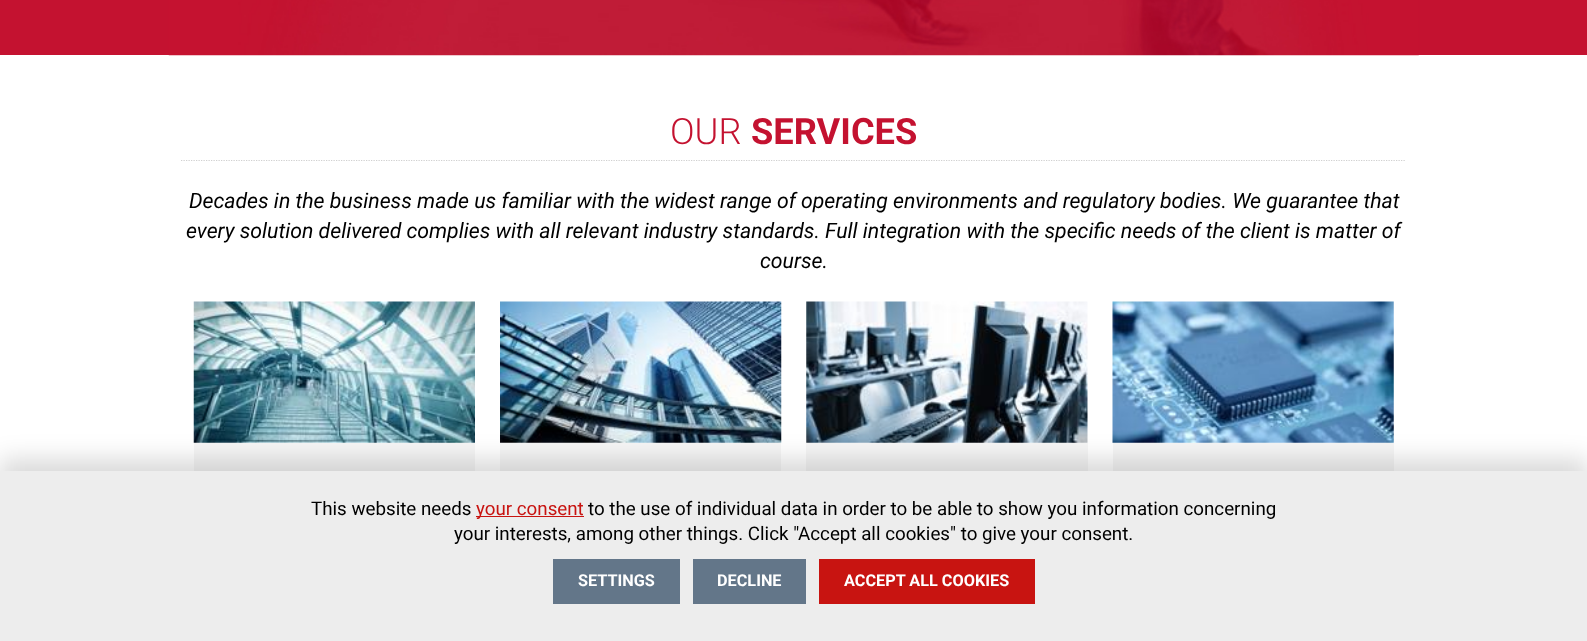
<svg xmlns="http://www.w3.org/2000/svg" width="1587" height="641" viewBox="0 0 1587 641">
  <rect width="100%" height="100%" fill="rgb(255,255,255)"/>
  <rect x="0" y="0" width="1587" height="55" fill="rgb(196,18,48)"/>
  <image x="168" y="0" width="1251" height="56" href="pic1.png"/>
  <path d="M181 160.5H1406" fill="none" stroke="rgb(208,208,208)" stroke-width="1.2" stroke-dasharray="1.25 1.25"/>
  <text x="670" y="144" font-family="Roboto" font-size="36.25" font-weight="300" fill="rgb(196,18,48)">OUR</text>
  <text x="751" y="144" font-family="Roboto" font-size="36.25" font-weight="bold" fill="rgb(196,18,48)">SERVICES</text>
  <g font-family="Roboto" font-size="21.25" font-style="italic" fill="rgb(0,0,0)">
    <text x="189" y="208">Decades in the business made us familiar with the widest range of operating environments and regulatory bodies. We guarantee that</text>
    <text x="186" y="238">every solution delivered complies with all relevant industry standards. Full integration with the specific needs of the client is matter of</text>
    <text x="760" y="268">course.</text>
  </g>
  <image x="193" y="301" width="282" height="142" href="pic2.png"/>
  <rect x="194" y="443" width="281" height="28" fill="rgb(246,246,246)"/>
  <image x="500" y="301" width="282" height="142" href="pic3.png"/>
  <rect x="500" y="443" width="281" height="28" fill="rgb(246,246,246)"/>
  <image x="806" y="301" width="282" height="142" href="pic4.png"/>
  <rect x="806" y="443" width="282" height="28" fill="rgb(246,246,246)"/>
  <image x="1112" y="301" width="282" height="142" href="pic5.png"/>
  <rect x="1113" y="443" width="281" height="28" fill="rgb(246,246,246)"/>
  <rect x="0" y="459" width="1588" height="170" fill="rgba(0,0,0,0.15)" filter="blur(12.5px)"/>
  <rect x="0" y="471" width="1587" height="170" fill="rgb(237,237,237)"/>
  <text x="311" y="515" font-family="Roboto" font-size="18.75" fill="rgb(0,0,0)">This website needs</text>
  <rect x="476" y="516" width="108" height="1" fill="rgb(200,20,17)"/>
  <text x="476" y="515" font-family="Roboto" font-size="18.75" fill="rgb(200,20,17)">your consent</text>
  <g font-family="Roboto" font-size="18.75" fill="rgb(0,0,0)">
    <text x="588" y="515">to the use of individual data in order to be able to show you information concerning</text>
    <text x="454" y="540">your interests, among other things. Click "Accept all cookies" to give your consent.</text>
  </g>
  <rect x="553" y="559" width="127" height="45" fill="rgb(99,118,137)"/>
  <text x="578" y="586" font-family="Roboto" font-size="16.25" font-weight="bold" fill="rgb(255,255,255)">SETTINGS</text>
  <rect x="693" y="559" width="113" height="45" fill="rgb(99,118,137)"/>
  <text x="717" y="586" font-family="Roboto" font-size="16.25" font-weight="bold" fill="rgb(255,255,255)">DECLINE</text>
  <rect x="819" y="559" width="216" height="45" fill="rgb(200,20,17)"/>
  <text x="844" y="586" font-family="Roboto" font-size="16.25" font-weight="bold" fill="rgb(255,255,255)">ACCEPT ALL COOKIES</text>
</svg>
